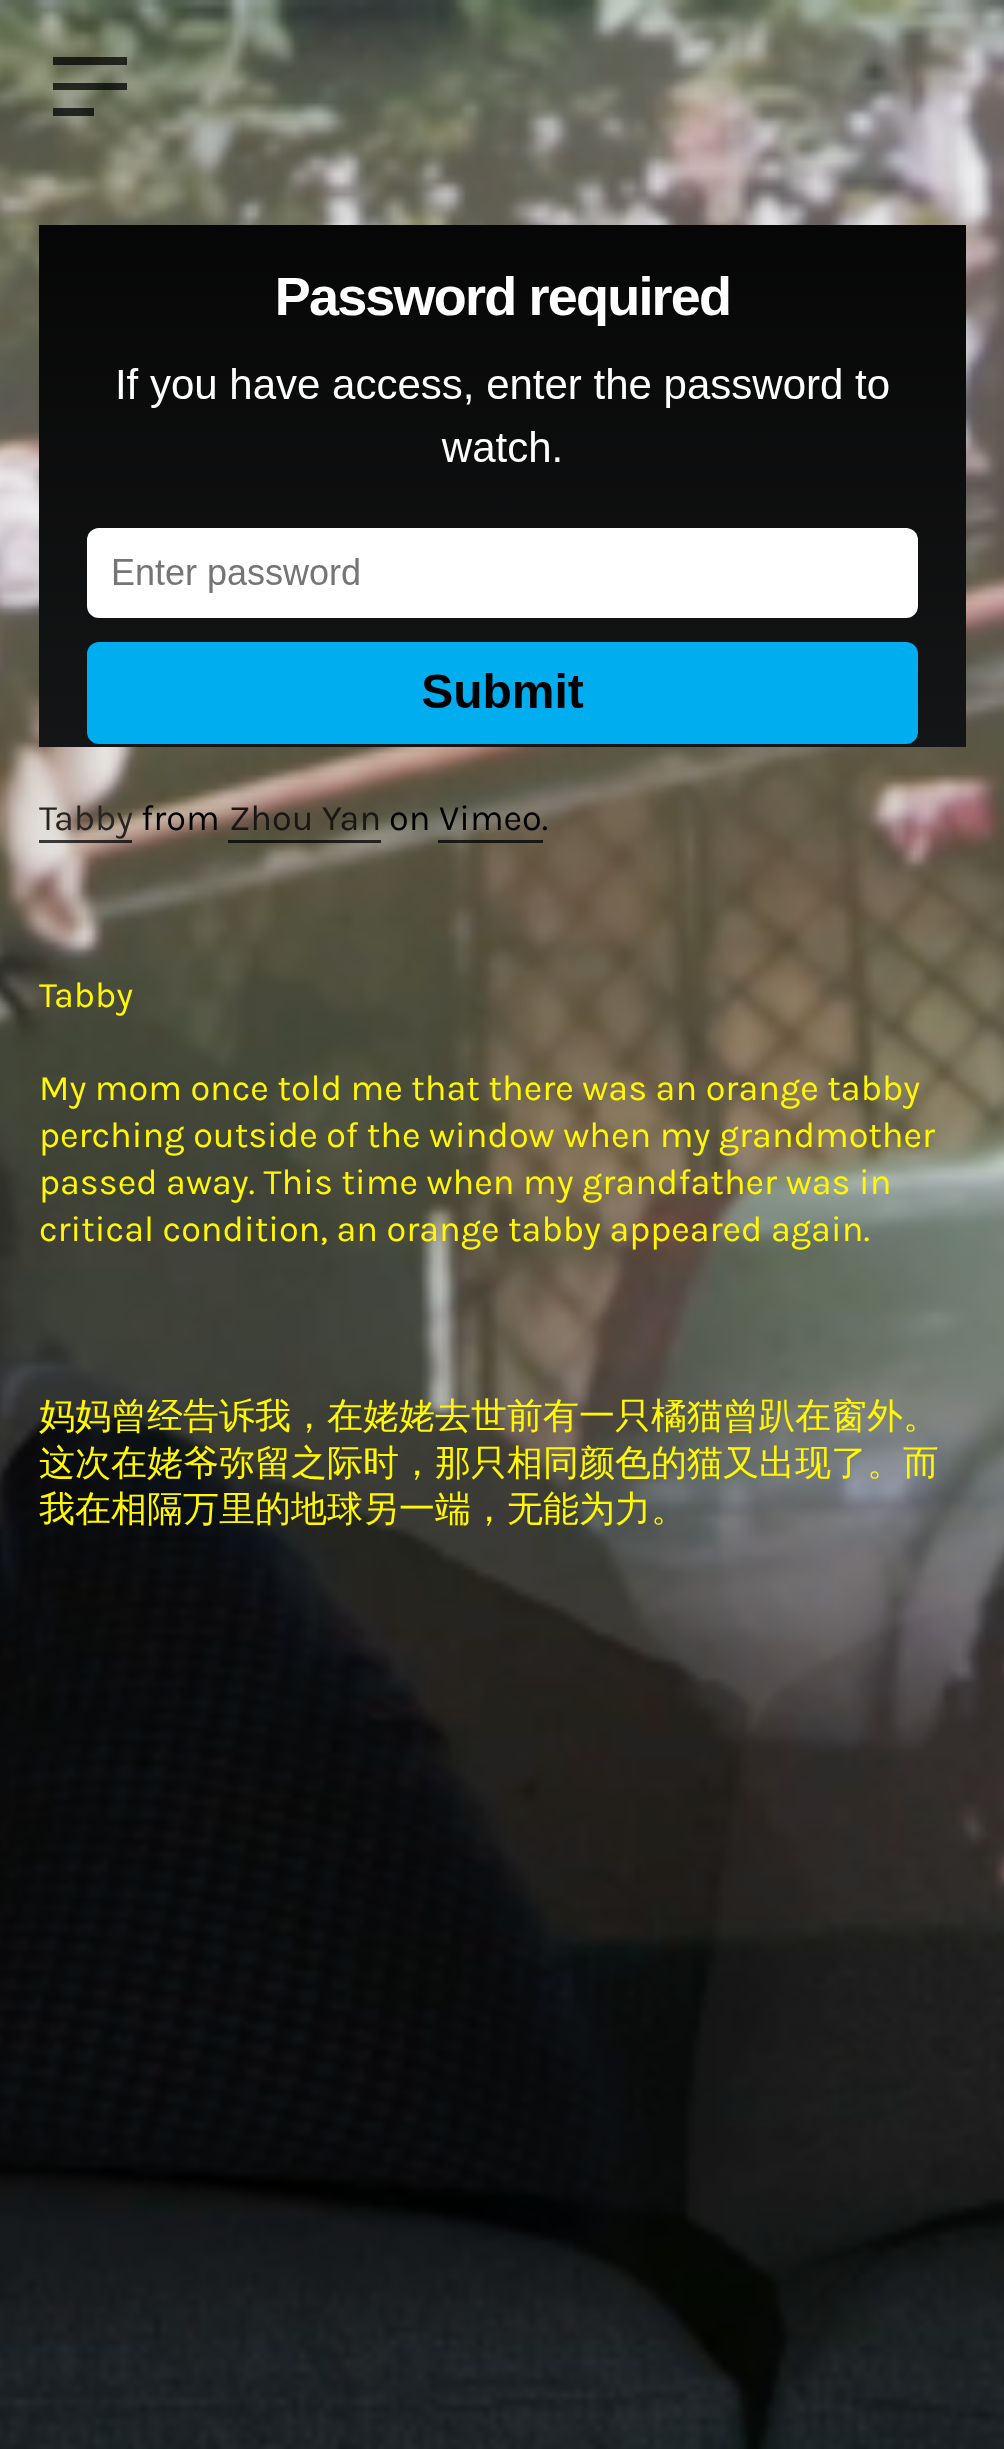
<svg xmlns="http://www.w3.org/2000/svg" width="1004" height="2449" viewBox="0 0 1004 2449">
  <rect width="100%" height="100%" fill="rgb(255,255,255)"/>
  <image x="0" y="0" width="1004" height="2449" href="pic1.png"/>
  <path d="M127 57V65H53V57ZM127 83V90H53V83ZM94 108V116H53V108Z" fill="rgba(0,0,0,0.75)"/>
  <image x="39" y="225" width="927" height="522" href="pic2.png"/>
  <text x="39" y="830" font-family="Karla" font-size="36" fill="rgb(41,37,34)">Tabby</text>
  <rect x="39" y="840" width="93" height="3" fill="rgba(0,0,0,0.75)"/>
  <text x="141" y="830" font-family="Karla" font-size="36" fill="rgb(0,0,0)">from</text>
  <text x="229" y="830" font-family="Karla" font-size="36" fill="rgb(25,23,19)">Zhou Yan</text>
  <rect x="228" y="840" width="153" height="3" fill="rgba(0,0,0,0.75)"/>
  <text x="389" y="830" font-family="Karla" font-size="36" fill="rgb(0,0,0)">on Vimeo.</text>
  <rect x="438" y="840" width="105" height="3" fill="rgba(0,0,0,0.75)"/>
  <g font-family="Karla" font-size="36" fill="rgb(255,248,0)">
    <text x="39" y="1007">Tabby</text>
    <text>
      <tspan x="39" y="1100">My mom once told me that there was an orange tabby</tspan>
      <tspan x="39" y="1147">perching outside of the window when my grandmother</tspan>
      <tspan x="39" y="1194">passed away. This time when my grandfather was in</tspan>
      <tspan x="39" y="1241">critical condition, an orange tabby appeared again.</tspan>
    </text>
  </g>
  <g font-family="WenQuanYi Zen Hei" font-size="36" font-weight="500" fill="rgb(255,248,0)">
    <text>
      <tspan x="39" y="1428">妈妈曾经告诉我，在姥姥去世前有一只橘猫曾趴在窗外。</tspan>
      <tspan x="39" y="1475">这次在姥爷弥留之际时，那只相同颜色的猫又出现了。而</tspan>
      <tspan x="39" y="1521">我在相隔万里的地球另一端，无能为力。</tspan>
    </text>
  </g>
</svg>
